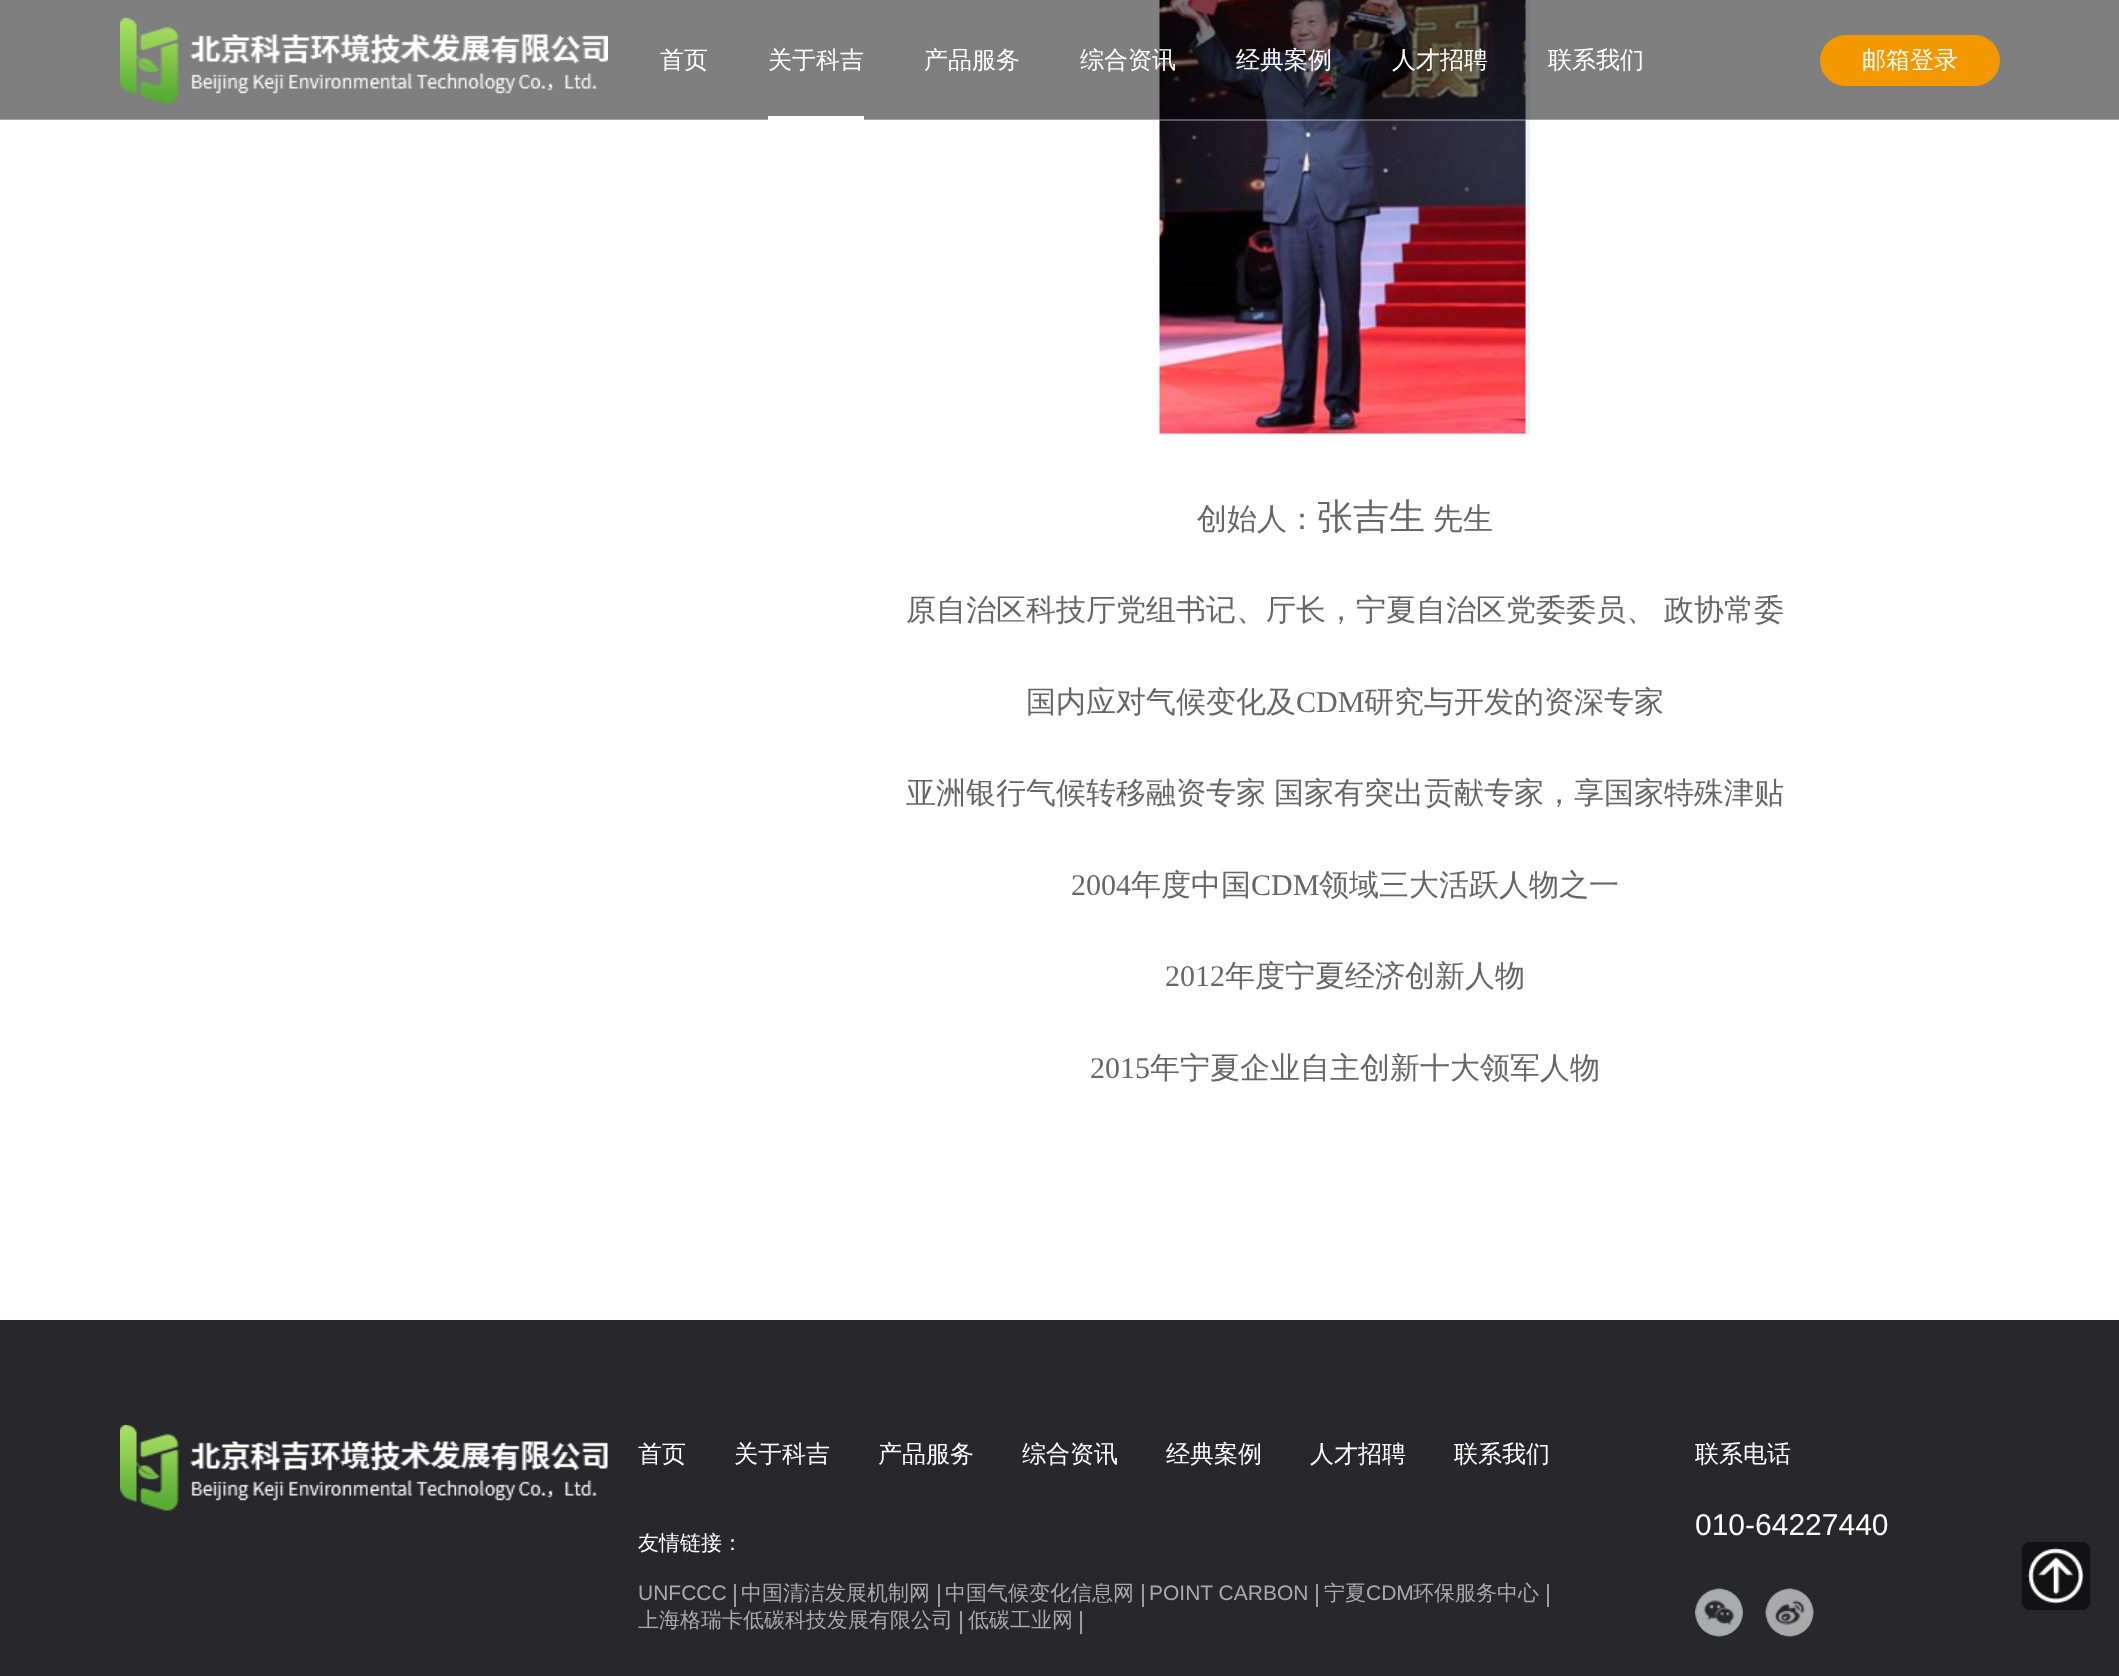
<svg xmlns="http://www.w3.org/2000/svg" width="2119" height="1676" viewBox="0 0 2119 1676">
  <rect width="100%" height="100%" fill="rgb(255,255,255)"/>
  <image x="1159" y="0" width="371" height="435" href="pic2.png"/>
  <rect x="0" y="0" width="2119" height="120" fill="rgba(0,0,0,0.5)"/>
  <rect x="0" y="119" width="2119" height="2" fill="rgba(255,255,255,0.3)"/>
  <image x="120" y="18" width="488" height="86" href="pic1.png"/>
  <g font-family="WenQuanYi Zen Hei" font-size="24" font-weight="500" fill="rgb(255,255,255)">
    <text x="660" y="68">首页</text>
    <text x="768" y="68">关于科吉</text>
  </g>
  <rect x="768" y="116" width="96" height="4" fill="rgb(255,255,255)"/>
  <g font-family="WenQuanYi Zen Hei" font-size="24" font-weight="500" fill="rgb(255,255,255)">
    <text x="924" y="68">产品服务</text>
    <text x="1080" y="68">综合资讯</text>
    <text x="1236" y="68">经典案例</text>
    <text x="1392" y="68">人才招聘</text>
    <text x="1548" y="68">联系我们</text>
  </g>
  <rect x="1820" y="35" width="180" height="51" rx="25.5" fill="rgb(243,152,0)"/>
  <text x="1862" y="68" font-family="WenQuanYi Zen Hei" font-size="24" font-weight="500" fill="rgb(255,255,255)">邮箱登录</text>
  <text x="1197" y="529" font-family="WenQuanYi Zen Hei" font-size="30" font-weight="500" fill="rgb(102,102,102)">创始人：</text>
  <text x="1317" y="529" font-family="WenQuanYi Zen Hei" font-size="36" font-weight="500" fill="rgb(102,102,102)">张吉生</text>
  <g font-family="WenQuanYi Zen Hei" font-size="30" font-weight="500" fill="rgb(102,102,102)">
    <text x="1433" y="529">先生</text>
    <text x="906" y="620" word-spacing="-1">原自治区科技厅党组书记、厅长，宁夏自治区党委委员、 政协常委</text>
    <text x="1026" y="712">国内应对气候变化及</text>
  </g>
  <text x="1296" y="712" font-family="Liberation Serif" font-size="30" fill="rgb(102,102,102)">CDM</text>
  <g font-family="WenQuanYi Zen Hei" font-size="30" font-weight="500" fill="rgb(102,102,102)">
    <text x="1364" y="712">研究与开发的资深专家</text>
    <text x="906" y="803" word-spacing="-1">亚洲银行气候转移融资专家 国家有突出贡献专家，享国家特殊津贴</text>
  </g>
  <text x="1071" y="895" font-family="Liberation Serif" font-size="30" fill="rgb(102,102,102)">2004</text>
  <text x="1131" y="895" font-family="WenQuanYi Zen Hei" font-size="30" font-weight="500" fill="rgb(102,102,102)">年度中国</text>
  <text x="1251" y="895" font-family="Liberation Serif" font-size="30" fill="rgb(102,102,102)">CDM</text>
  <text x="1319" y="895" font-family="WenQuanYi Zen Hei" font-size="30" font-weight="500" fill="rgb(102,102,102)">领域三大活跃人物之一</text>
  <text x="1165" y="986" font-family="Liberation Serif" font-size="30" fill="rgb(102,102,102)">2012</text>
  <text x="1225" y="986" font-family="WenQuanYi Zen Hei" font-size="30" font-weight="500" fill="rgb(102,102,102)">年度宁夏经济创新人物</text>
  <text x="1090" y="1078" font-family="Liberation Serif" font-size="30" fill="rgb(102,102,102)">2015</text>
  <text x="1150" y="1078" font-family="WenQuanYi Zen Hei" font-size="30" font-weight="500" fill="rgb(102,102,102)">年宁夏企业自主创新十大领军人物</text>
  <rect x="0" y="1320" width="2119" height="356" fill="rgb(40,40,44)"/>
  <image x="120" y="1425" width="488" height="86" href="pic3.png"/>
  <g font-family="WenQuanYi Zen Hei" font-size="24" font-weight="500" fill="rgb(255,255,255)">
    <text x="638" y="1462">首页</text>
    <text x="734" y="1462">关于科吉</text>
    <text x="878" y="1462">产品服务</text>
    <text x="1022" y="1462">综合资讯</text>
    <text x="1166" y="1462">经典案例</text>
    <text x="1310" y="1462">人才招聘</text>
    <text x="1454" y="1462">联系我们</text>
  </g>
  <text x="638" y="1550" font-family="WenQuanYi Zen Hei" font-size="21" font-weight="500" fill="rgb(255,255,255)">友情链接：</text>
  <text x="638" y="1600" font-family="Liberation Sans" font-size="21" fill="rgb(169,169,171)">UNFCCC</text>
  <rect x="734" y="1584" width="2" height="23" fill="rgb(158,158,159)"/>
  <text x="741" y="1600" font-family="WenQuanYi Zen Hei" font-size="21" font-weight="500" fill="rgb(169,169,171)">中国清洁发展机制网</text>
  <rect x="938" y="1584" width="2" height="23" fill="rgb(158,158,159)"/>
  <text x="945" y="1600" font-family="WenQuanYi Zen Hei" font-size="21" font-weight="500" fill="rgb(169,169,171)">中国气候变化信息网</text>
  <rect x="1142" y="1584" width="2" height="23" fill="rgb(158,158,159)"/>
  <text x="1149" y="1600" font-family="Liberation Sans" font-size="21" fill="rgb(169,169,171)">POINT CARBON</text>
  <rect x="1316" y="1584" width="2" height="23" fill="rgb(158,158,159)"/>
  <text x="1324" y="1600" font-family="WenQuanYi Zen Hei" font-size="21" font-weight="500" fill="rgb(169,169,171)">宁夏</text>
  <text x="1366" y="1600" font-family="Liberation Sans" font-size="21" fill="rgb(169,169,171)">CDM</text>
  <text x="1413" y="1600" font-family="WenQuanYi Zen Hei" font-size="21" font-weight="500" fill="rgb(169,169,171)">环保服务中心</text>
  <rect x="1547" y="1584" width="2" height="23" fill="rgb(158,158,159)"/>
  <text x="638" y="1627" font-family="WenQuanYi Zen Hei" font-size="21" font-weight="500" fill="rgb(169,169,171)">上海格瑞卡低碳科技发展有限公司</text>
  <rect x="960" y="1611" width="2" height="23" fill="rgb(158,158,159)"/>
  <text x="968" y="1627" font-family="WenQuanYi Zen Hei" font-size="21" font-weight="500" fill="rgb(169,169,171)">低碳工业网</text>
  <rect x="1080" y="1611" width="2" height="23" fill="rgb(158,158,159)"/>
  <text x="1695" y="1462" font-family="WenQuanYi Zen Hei" font-size="24" font-weight="500" fill="rgb(255,255,255)">联系电话</text>
  <text x="1695" y="1535" font-family="Liberation Sans" font-size="30" fill="rgb(255,255,255)">010-64227440</text>
  <image x="1695" y="1588" width="48" height="49" href="pic4.png"/>
  <image x="1765" y="1588" width="49" height="49" href="pic5.png"/>
  <rect x="2022" y="1542" width="68" height="68" rx="8" fill="rgb(18,18,18)"/>
  <image x="2027" y="1547" width="57" height="57" href="pic6.png"/>
</svg>
